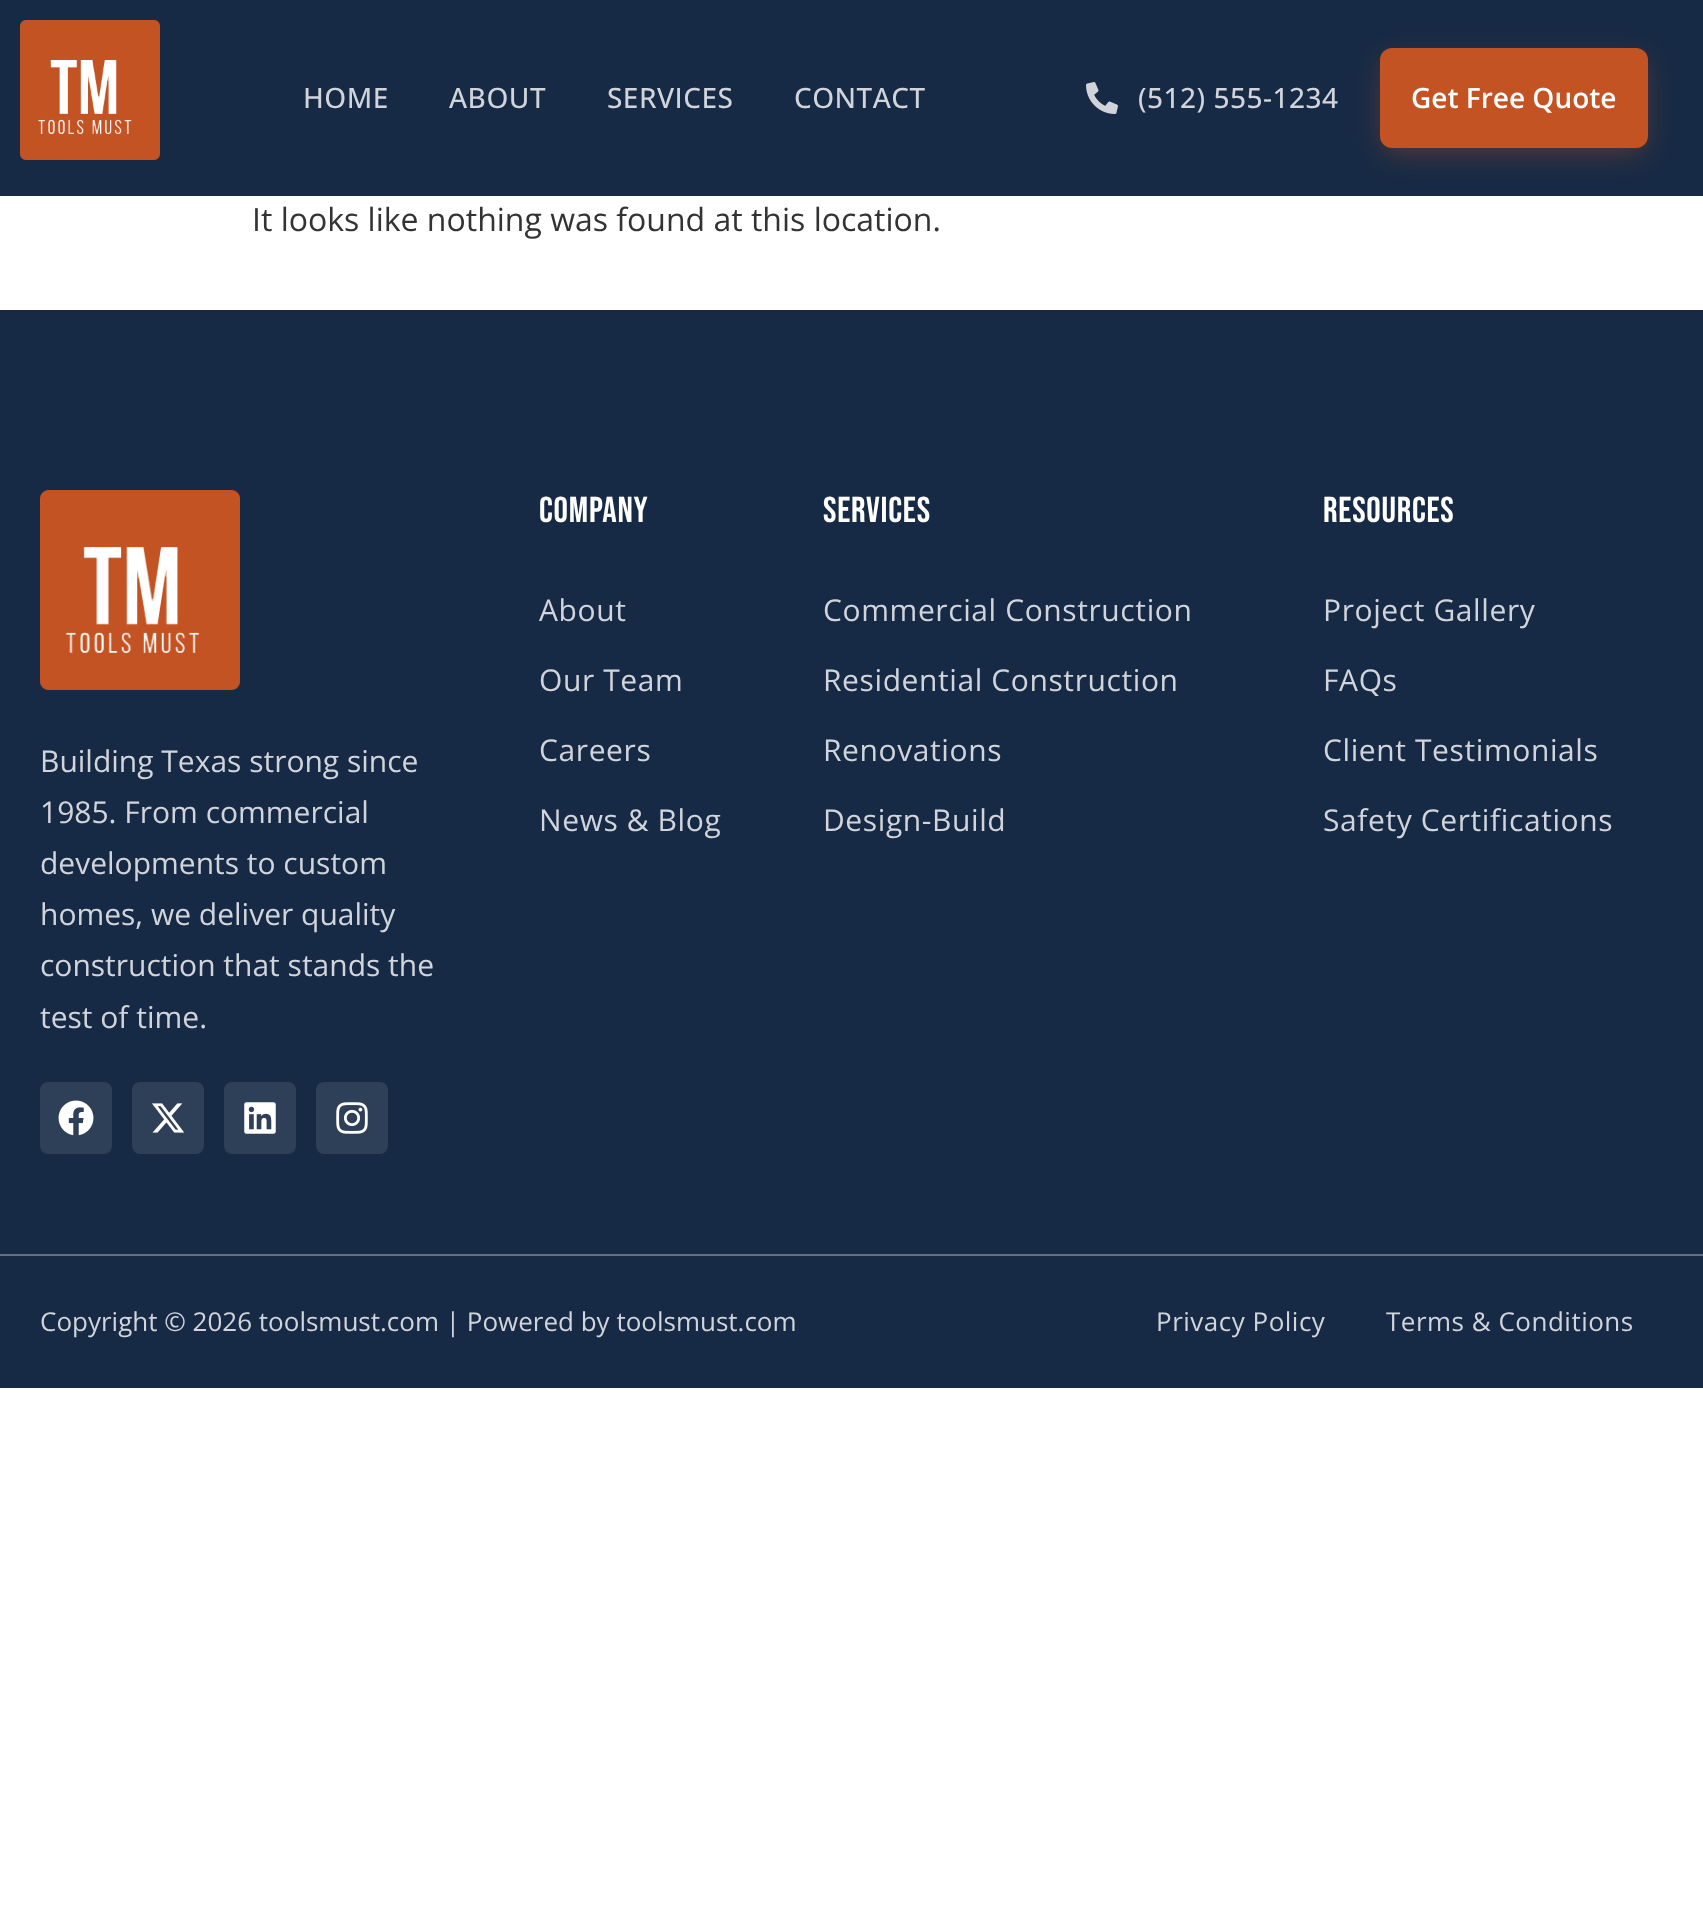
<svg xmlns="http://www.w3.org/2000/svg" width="1703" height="1929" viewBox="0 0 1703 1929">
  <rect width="100%" height="100%" fill="rgb(255,255,255)"/>
  <rect x="0" y="0" width="1703" height="196" fill="rgb(23,42,69)"/>
  <image x="20" y="20" width="140" height="140" href="pic1.png"/>
  <g font-family="Open Sans" font-size="28" font-weight="500" letter-spacing="0.5" fill="rgb(209,212,218)">
    <text x="303" y="108">HOME</text>
    <text x="449" y="108">ABOUT</text>
    <text x="607" y="108">SERVICES</text>
    <text x="794" y="108">CONTACT</text>
  </g>
  <image x="1086" y="82" width="32" height="32" href="pic2.png"/>
  <text x="1138" y="108" font-family="Open Sans" font-size="28" font-weight="500" letter-spacing="0.5" fill="rgb(209,212,218)">(512) 555-1234</text>
  <rect x="1384" y="60" width="260" height="92" rx="8" fill="rgba(195,83,34,0.4)" filter="blur(14px)"/>
  <rect x="1380" y="48" width="268" height="100" rx="12" fill="rgb(195,83,34)"/>
  <text x="1411" y="108" font-family="Open Sans" font-size="28" font-weight="600" fill="rgb(255,255,255)">Get Free Quote</text>
  <text x="252" y="231" font-family="Open Sans" font-size="32" fill="rgb(51,51,51)">It looks like nothing was found at this location.</text>
  <rect x="0" y="310" width="1703" height="944" fill="rgb(23,42,69)"/>
  <text x="539" y="522" font-family="Bebas Neue" font-size="36" letter-spacing="0.75" fill="rgb(255,255,255)">Company</text>
  <g font-family="Open Sans" font-size="30" letter-spacing="0.6" fill="rgb(209,212,218)">
    <text x="539" y="621">About</text>
    <text x="539" y="691">Our Team</text>
    <text x="539" y="761">Careers</text>
    <text x="539" y="831">News &amp; Blog</text>
  </g>
  <text x="823" y="522" font-family="Bebas Neue" font-size="36" letter-spacing="0.75" fill="rgb(255,255,255)">Services</text>
  <g font-family="Open Sans" font-size="30" letter-spacing="0.6" fill="rgb(209,212,218)">
    <text x="823" y="621">Commercial Construction</text>
    <text x="823" y="691">Residential Construction</text>
    <text x="823" y="761">Renovations</text>
    <text x="823" y="831">Design-Build</text>
  </g>
  <text x="1323" y="522" font-family="Bebas Neue" font-size="36" letter-spacing="0.75" fill="rgb(255,255,255)">Resources</text>
  <g font-family="Open Sans" font-size="30" letter-spacing="0.6" fill="rgb(209,212,218)">
    <text x="1323" y="621">Project Gallery</text>
    <text x="1323" y="691">FAQs</text>
    <text x="1323" y="761">Client Testimonials</text>
    <text x="1323" y="831">Safety Certifications</text>
  </g>
  <image x="40" y="490" width="200" height="200" href="pic3.png"/>
  <g font-family="Open Sans" font-size="30" fill="rgb(209,212,218)">
    <text>
      <tspan x="40" y="772">Building Texas strong since</tspan>
      <tspan x="40" y="823">1985. From commercial</tspan>
      <tspan x="40" y="874">developments to custom</tspan>
      <tspan x="40" y="925">homes, we deliver quality</tspan>
      <tspan x="40" y="976">construction that stands the</tspan>
      <tspan x="40" y="1028">test of time.</tspan>
    </text>
  </g>
  <rect x="40" y="1082" width="72" height="72" rx="8" fill="rgb(46,63,88)"/>
  <image x="58" y="1100" width="36" height="36" href="pic4.png"/>
  <rect x="132" y="1082" width="72" height="72" rx="8" fill="rgb(46,63,88)"/>
  <image x="152" y="1103" width="33" height="30" href="pic5.png"/>
  <rect x="224" y="1082" width="72" height="72" rx="8" fill="rgb(46,63,88)"/>
  <image x="244" y="1102" width="32" height="32" href="pic6.png"/>
  <rect x="316" y="1082" width="72" height="72" rx="8" fill="rgb(46,63,88)"/>
  <image x="336" y="1102" width="32" height="32" href="pic7.png"/>
  <rect x="0" y="1256" width="1703" height="132" fill="rgb(23,42,69)"/>
  <rect x="0" y="1254" width="1703" height="2" fill="rgb(100,112,130)"/>
  <text x="40" y="1331" font-family="Open Sans" font-size="26" fill="rgb(209,212,218)">Copyright © 2026 toolsmust.com | Powered by toolsmust.com</text>
  <g font-family="Open Sans" font-size="26" letter-spacing="0.5" fill="rgb(209,212,218)">
    <text x="1156" y="1331">Privacy Policy</text>
    <text x="1386" y="1331">Terms &amp; Conditions</text>
  </g>
</svg>
